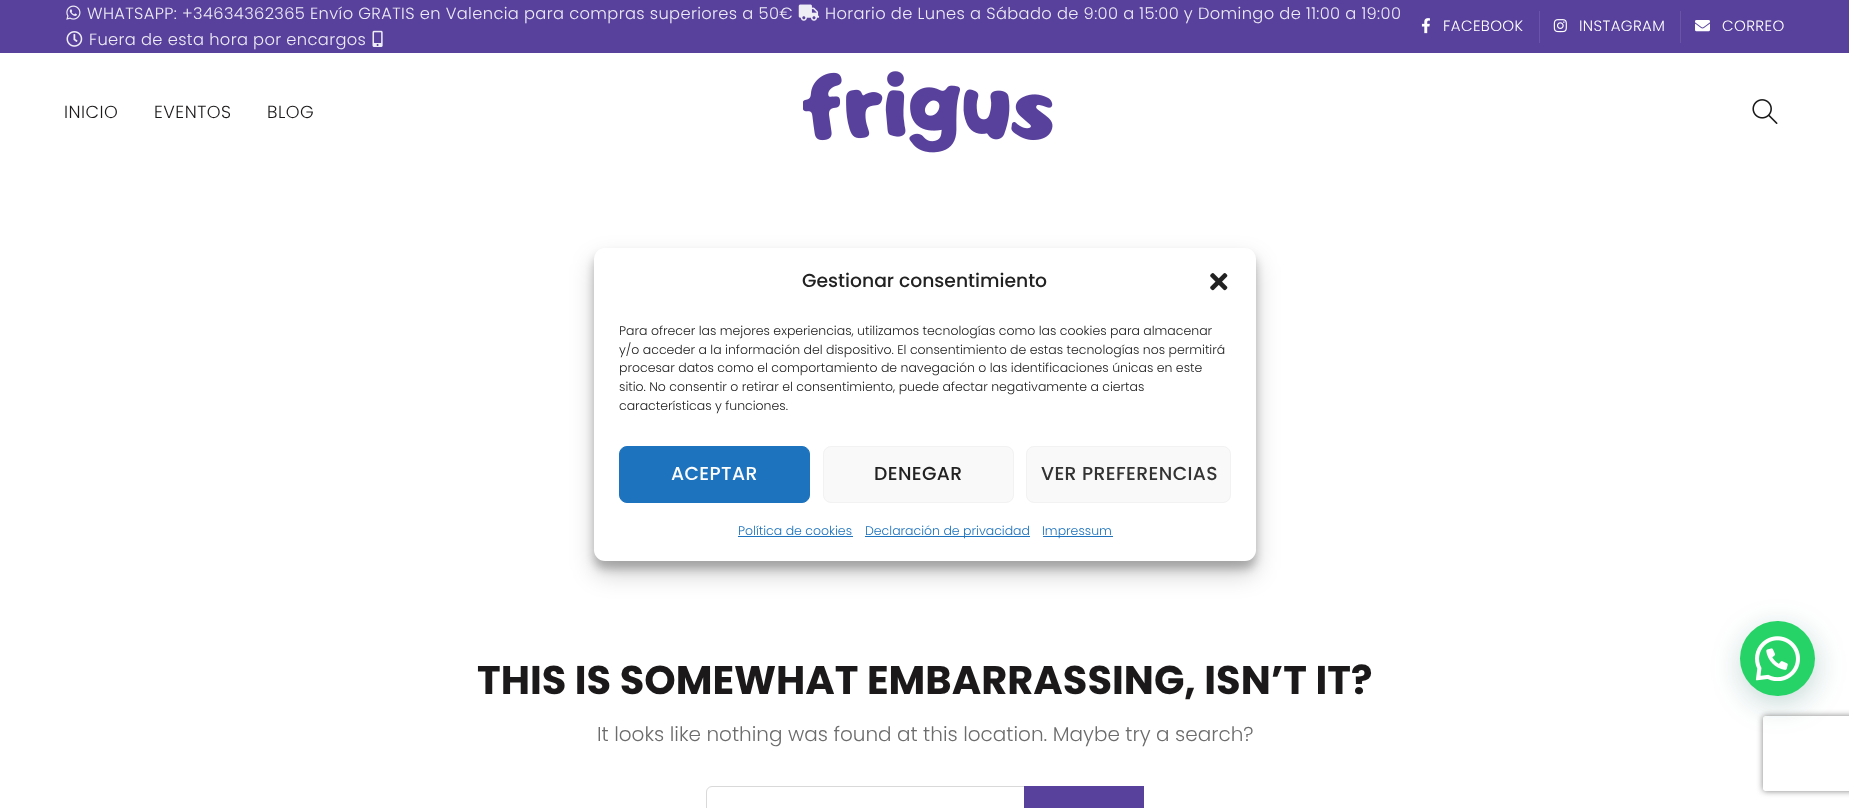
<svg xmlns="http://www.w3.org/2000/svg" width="1849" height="808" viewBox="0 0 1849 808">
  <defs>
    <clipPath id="clip1"><path d="M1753 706H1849V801H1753ZM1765.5 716H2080.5C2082 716 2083 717 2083 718.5V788.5C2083 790 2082 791 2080.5 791H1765.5C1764 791 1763 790 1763 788.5V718.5C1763 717 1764 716 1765.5 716Z" clip-rule="evenodd"/></clipPath>
  </defs>
  <rect width="100%" height="100%" fill="rgb(255,255,255)"/>
  <rect x="0" y="0" width="1849" height="53" fill="rgb(88,65,156)"/>
  <image x="66" y="5" width="15" height="15" href="pic1.png"/>
  <text x="87" y="19" font-family="Poppins" font-size="16.25" font-weight="300" letter-spacing="0.38" fill="rgb(238,236,245)">WHATSAPP: +34634362365 Envío GRATIS en Valencia para compras superiores a 50€</text>
  <image x="798" y="4" width="22" height="17" href="pic2.png"/>
  <text x="825" y="19" font-family="Poppins" font-size="16.25" font-weight="300" letter-spacing="0.38" fill="rgb(238,236,245)">Horario de Lunes a Sábado de 9:00 a 15:00 y Domingo de 11:00 a 19:00</text>
  <image x="66" y="31" width="17" height="16" href="pic3.png"/>
  <text x="89" y="45" font-family="Poppins" font-size="16.25" font-weight="300" letter-spacing="0.38" fill="rgb(238,236,245)">Fuera de esta hora por encargos</text>
  <image x="372" y="30" width="11" height="17" href="pic4.png"/>
  <image x="1421" y="18" width="9" height="16" href="pic5.png"/>
  <text x="1443" y="31" font-family="Poppins" font-size="15" font-weight="300" letter-spacing="0.38" fill="rgb(255,255,255)">FACEBOOK</text>
  <rect x="1539" y="11" width="1" height="32" fill="rgb(105,84,166)"/>
  <image x="1553" y="19" width="14" height="14" href="pic6.png"/>
  <text x="1579" y="31" font-family="Poppins" font-size="15" font-weight="300" letter-spacing="0.38" fill="rgb(255,255,255)">INSTAGRAM</text>
  <rect x="1680" y="11" width="1" height="32" fill="rgb(105,84,166)"/>
  <image x="1695" y="20" width="15" height="12" href="pic7.png"/>
  <text x="1722" y="31" font-family="Poppins" font-size="15" font-weight="300" letter-spacing="0.38" fill="rgb(255,255,255)">CORREO</text>
  <g font-family="Poppins" font-size="17.5" font-weight="300" letter-spacing="0.5" fill="rgb(27,25,25)">
    <text x="64" y="118">INICIO</text>
    <text x="154" y="118">EVENTOS</text>
    <text x="267" y="118">BLOG</text>
  </g>
  <image x="803" y="71" width="250" height="82" href="pic8.png"/>
  <image x="1752" y="99" width="26" height="25" href="pic9.png"/>
  <text x="477" y="694" font-family="Poppins" font-size="40" font-weight="bold" fill="rgb(27,25,25)">THIS IS SOMEWHAT EMBARRASSING, ISN’T IT?</text>
  <text x="597" y="741" font-family="Poppins" font-size="20" font-weight="300" fill="rgb(108,108,108)">It looks like nothing was found at this location. Maybe try a search?</text>
  <rect x="706.5" y="786.5" width="437" height="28" rx="5.5" fill="none" stroke="rgb(217,217,217)"/>
  <rect x="1024" y="786" width="120" height="22" fill="rgb(88,65,156)"/>
  <rect x="594" y="255" width="662" height="314" rx="11" fill="rgba(0,0,0,0.23)" filter="blur(4px)"/>
  <rect x="594" y="260" width="662" height="314" rx="11" fill="rgba(0,0,0,0.19)" filter="blur(12.5px)"/>
  <rect x="594" y="248" width="662" height="313" rx="11" fill="rgb(255,255,255)"/>
  <text x="802" y="287" font-family="Poppins" font-size="18.75" font-weight="500" fill="rgb(34,34,34)">Gestionar consentimiento</text>
  <image x="1210" y="273" width="18" height="18" href="pic10.png"/>
  <g font-family="Poppins" font-size="12.5" font-weight="300" fill="rgb(34,34,34)">
    <text>
      <tspan x="619" y="335">Para ofrecer las mejores experiencias, utilizamos tecnologías como las cookies para almacenar</tspan>
      <tspan x="619" y="354">y/o acceder a la información del dispositivo. El consentimiento de estas tecnologías nos permitirá</tspan>
      <tspan x="619" y="372">procesar datos como el comportamiento de navegación o las identificaciones únicas en este</tspan>
      <tspan x="619" y="391">sitio. No consentir o retirar el consentimiento, puede afectar negativamente a ciertas</tspan>
      <tspan x="619" y="410">características y funciones.</tspan>
    </text>
  </g>
  <rect x="619.5" y="446.5" width="190" height="56" rx="7.5" fill="rgb(30,115,190)" stroke="rgb(30,115,190)"/>
  <text x="671" y="480" font-family="Poppins" font-size="18.75" font-weight="500" letter-spacing="0.38" fill="rgb(255,255,255)">ACEPTAR</text>
  <rect x="823.5" y="446.5" width="190" height="56" rx="7.5" fill="rgb(249,249,249)" stroke="rgb(242,242,242)"/>
  <text x="874" y="480" font-family="Poppins" font-size="18.75" font-weight="500" letter-spacing="0.38" fill="rgb(34,34,34)">DENEGAR</text>
  <rect x="1026.5" y="446.5" width="204" height="56" rx="7.5" fill="rgb(249,249,249)" stroke="rgb(242,242,242)"/>
  <text x="1041" y="480" font-family="Poppins" font-size="18.75" font-weight="500" letter-spacing="0.38" fill="rgb(51,51,51)">VER PREFERENCIAS</text>
  <text x="738" y="535" font-family="Poppins" font-size="12.5" font-weight="300" fill="rgb(30,115,190)">Política de cookies</text>
  <rect x="738" y="536" width="115" height="1" fill="rgb(30,115,190)"/>
  <rect x="865" y="536" width="165" height="1" fill="rgb(30,115,190)"/>
  <text x="865" y="535" font-family="Poppins" font-size="12.5" font-weight="300" fill="rgb(30,115,190)">Declaración de privacidad</text>
  <rect x="1043" y="536" width="70" height="1" fill="rgb(30,115,190)"/>
  <text x="1042" y="535" font-family="Poppins" font-size="12.5" font-weight="300" fill="rgb(30,115,190)">Impressum</text>
  <rect x="1741" y="629" width="75" height="75" rx="37.5" fill="rgba(7,94,84,0.24)" filter="blur(15px)"/>
  <circle cx="1777.5" cy="658.5" r="37.5" fill="rgb(37,211,102)"/>
  <image x="1755" y="636" width="45" height="45" href="pic11.png"/>
  <g clip-path="url(#clip1)">
    <rect x="1763" y="716" width="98" height="75" rx="2.5" fill="rgb(128,128,128)" filter="blur(3px)"/>
  </g>
</svg>
